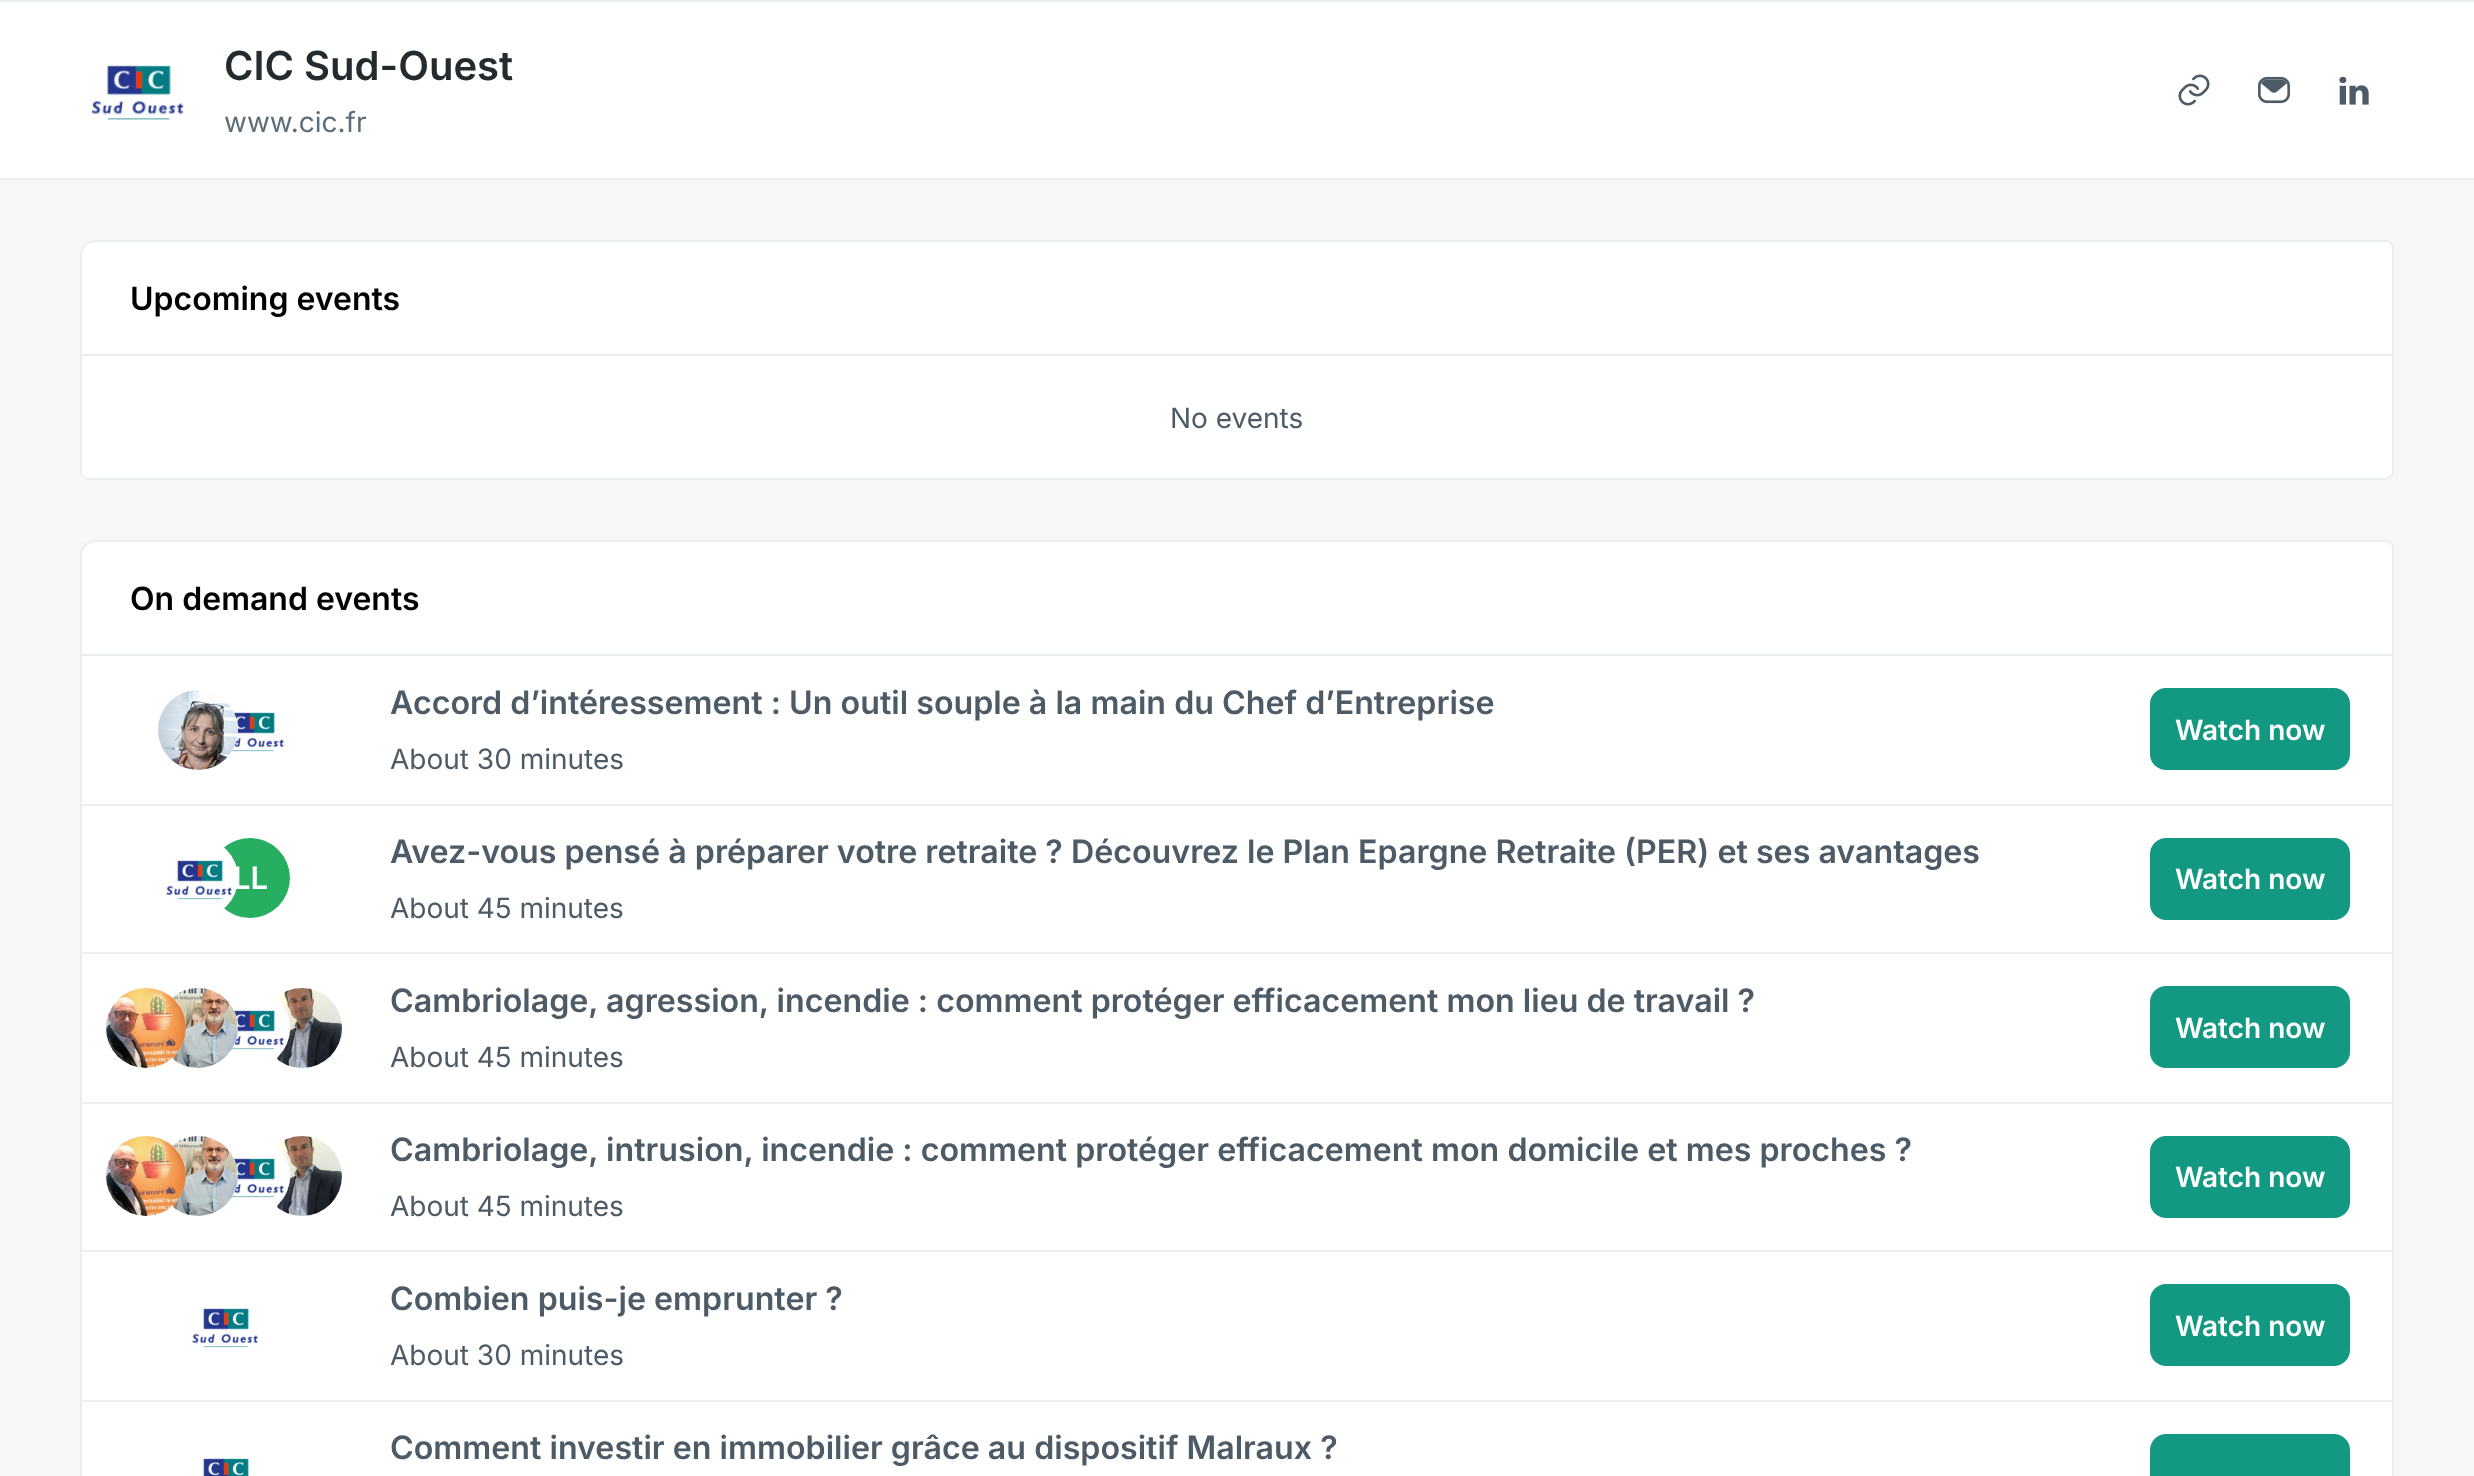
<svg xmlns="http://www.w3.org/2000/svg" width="2474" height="1476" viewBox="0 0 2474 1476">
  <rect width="100%" height="100%" fill="rgb(246,247,249)"/>
  <rect x="0" y="2" width="2474" height="176" fill="rgb(255,255,255)"/>
  <rect x="0" y="0" width="2474" height="2" fill="rgb(234,238,241)"/>
  <rect x="0" y="178" width="2474" height="2" fill="rgb(234,238,241)"/>
  <image x="91" y="65" width="93" height="55" href="pic1.png"/>
  <text x="224" y="80" font-family="Inter" font-size="40" font-weight="600" fill="rgb(35,43,47)">CIC Sud-Ouest</text>
  <text x="224" y="132" font-family="Inter" font-size="28" fill="rgb(93,109,121)">www.cic.fr</text>
  <image x="2178" y="74" width="32" height="32" href="pic2.png"/>
  <image x="2258" y="76" width="32" height="28" href="pic3.png"/>
  <image x="2339" y="76" width="30" height="29" href="pic4.png"/>
  <path d="M96 241H2386C2390 241 2393 244 2393 248V355H81V256C81 247.5 87.5 241 96 241Z" fill="rgb(255,255,255)" stroke="rgb(234,238,241)" stroke-width="2"/>
  <text x="130" y="310" font-family="Inter" font-size="32" font-weight="600" fill="rgb(0,0,0)">Upcoming events</text>
  <path d="M80 356H2394V472C2394 476.5 2390.5 480 2386 480H88C83.5 480 80 476.5 80 472Z" fill="rgb(255,255,255)"/>
  <path d="M80 356H2394V472C2394 476 2390 480 2386 480H88C84 480 80 476 80 472ZM82 356H2392V472C2392 475 2389 478 2386 478H88C85 478 82 475 82 472Z" fill="rgb(234,238,241)" fill-rule="evenodd"/>
  <text x="1170" y="428" font-family="Inter" font-size="28" fill="rgb(77,91,102)">No events</text>
  <path d="M96 541H2386C2390 541 2393 544 2393 548V655H81V556C81 547.5 87.5 541 96 541Z" fill="rgb(255,255,255)" stroke="rgb(234,238,241)" stroke-width="2"/>
  <text x="130" y="610" font-family="Inter" font-size="32" font-weight="600" fill="rgb(0,0,0)">On demand events</text>
  <rect x="82" y="656" width="2310" height="820" fill="rgb(255,255,255)"/>
  <path d="M80 656H2394V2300C2394 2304 2390 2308 2386 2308H88C84 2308 80 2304 80 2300ZM82 656H2392V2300C2392 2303 2389 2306 2386 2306H88C85 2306 82 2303 82 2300Z" fill="rgb(234,238,241)" fill-rule="evenodd"/>
  <image x="231" y="712" width="53" height="40" href="pic6.png"/>
  <circle cx="198" cy="730" r="40" fill="rgb(255,255,255)"/>
  <image x="158" y="690" width="80" height="80" href="pic5.png"/>
  <text x="390" y="714" font-family="Inter" font-size="32.2" font-weight="600" fill="rgb(77,91,102)">Accord d’intéressement : Un outil souple à la main du Chef d’Entreprise</text>
  <text x="390" y="769" font-family="Inter" font-size="28" fill="rgb(77,91,102)">About 30 minutes</text>
  <rect x="2150" y="688" width="200" height="82" rx="16" fill="rgb(19,152,130)"/>
  <text x="2175" y="740" font-family="Inter" font-size="28" font-weight="600" fill="rgb(255,255,255)">Watch now</text>
  <circle cx="250" cy="878" r="40" fill="rgb(39,174,96)"/>
  <circle cx="198" cy="878" r="40" fill="rgb(255,255,255)"/>
  <text x="233" y="889" font-family="Inter" font-size="31" font-weight="600" fill="rgb(255,255,255)">LL</text>
  <image x="166" y="847" width="71" height="61" href="pic7.png"/>
  <text x="390" y="863" font-family="Inter" font-size="32.2" font-weight="600" fill="rgb(77,91,102)">Avez-vous pensé à préparer votre retraite ? Découvrez le Plan Epargne Retraite (PER) et ses avantages</text>
  <text x="390" y="918" font-family="Inter" font-size="28" fill="rgb(77,91,102)">About 45 minutes</text>
  <rect x="82" y="804" width="2312" height="2" fill="rgb(236,238,239)"/>
  <rect x="2150" y="838" width="200" height="82" rx="16" fill="rgb(19,152,130)"/>
  <text x="2175" y="889" font-family="Inter" font-size="28" font-weight="600" fill="rgb(255,255,255)">Watch now</text>
  <image x="275" y="988" width="67" height="80" href="pic11.png"/>
  <circle cx="250" cy="1028" r="40" fill="rgb(255,255,255)"/>
  <image x="224" y="1004" width="66" height="54" href="pic10.png"/>
  <circle cx="198" cy="1028" r="40" fill="rgb(255,255,255)"/>
  <image x="171" y="988" width="67" height="80" href="pic9.png"/>
  <circle cx="146" cy="1028" r="40" fill="rgb(255,255,255)"/>
  <image x="106" y="988" width="80" height="80" href="pic8.png"/>
  <text x="390" y="1012" font-family="Inter" font-size="32.2" font-weight="600" fill="rgb(77,91,102)">Cambriolage, agression, incendie : comment protéger efficacement mon lieu de travail ?</text>
  <text x="390" y="1067" font-family="Inter" font-size="28" fill="rgb(77,91,102)">About 45 minutes</text>
  <rect x="82" y="952" width="2312" height="2" fill="rgb(236,238,239)"/>
  <rect x="2150" y="986" width="200" height="82" rx="16" fill="rgb(19,152,130)"/>
  <text x="2175" y="1038" font-family="Inter" font-size="28" font-weight="600" fill="rgb(255,255,255)">Watch now</text>
  <image x="275" y="1136" width="67" height="80" href="pic15.png"/>
  <circle cx="250" cy="1176" r="40" fill="rgb(255,255,255)"/>
  <image x="224" y="1152" width="66" height="54" href="pic14.png"/>
  <circle cx="198" cy="1176" r="40" fill="rgb(255,255,255)"/>
  <image x="171" y="1136" width="67" height="80" href="pic13.png"/>
  <circle cx="146" cy="1176" r="40" fill="rgb(255,255,255)"/>
  <image x="106" y="1136" width="80" height="80" href="pic12.png"/>
  <text x="390" y="1161" font-family="Inter" font-size="32.2" font-weight="600" fill="rgb(77,91,102)">Cambriolage, intrusion, incendie : comment protéger efficacement mon domicile et mes proches ?</text>
  <text x="390" y="1216" font-family="Inter" font-size="28" fill="rgb(77,91,102)">About 45 minutes</text>
  <rect x="82" y="1102" width="2312" height="2" fill="rgb(236,238,239)"/>
  <rect x="2150" y="1136" width="200" height="82" rx="16" fill="rgb(19,152,130)"/>
  <text x="2175" y="1187" font-family="Inter" font-size="28" font-weight="600" fill="rgb(255,255,255)">Watch now</text>
  <image x="192" y="1308" width="66" height="40" href="pic16.png"/>
  <text x="390" y="1310" font-family="Inter" font-size="32.2" font-weight="600" fill="rgb(77,91,102)">Combien puis-je emprunter ?</text>
  <text x="390" y="1365" font-family="Inter" font-size="28" fill="rgb(77,91,102)">About 30 minutes</text>
  <rect x="82" y="1250" width="2312" height="2" fill="rgb(236,238,239)"/>
  <rect x="2150" y="1284" width="200" height="82" rx="16" fill="rgb(19,152,130)"/>
  <text x="2175" y="1336" font-family="Inter" font-size="28" font-weight="600" fill="rgb(255,255,255)">Watch now</text>
  <rect x="82" y="1400" width="2312" height="2" fill="rgb(236,238,239)"/>
  <rect x="2150" y="1434" width="200" height="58" rx="16" fill="rgb(19,152,130)"/>
  <image x="203" y="1458" width="46" height="18" href="pic17.png"/>
  <text x="390" y="1459" font-family="Inter" font-size="32.2" font-weight="600" fill="rgb(77,91,102)">Comment investir en immobilier grâce au dispositif Malraux ?</text>
</svg>
